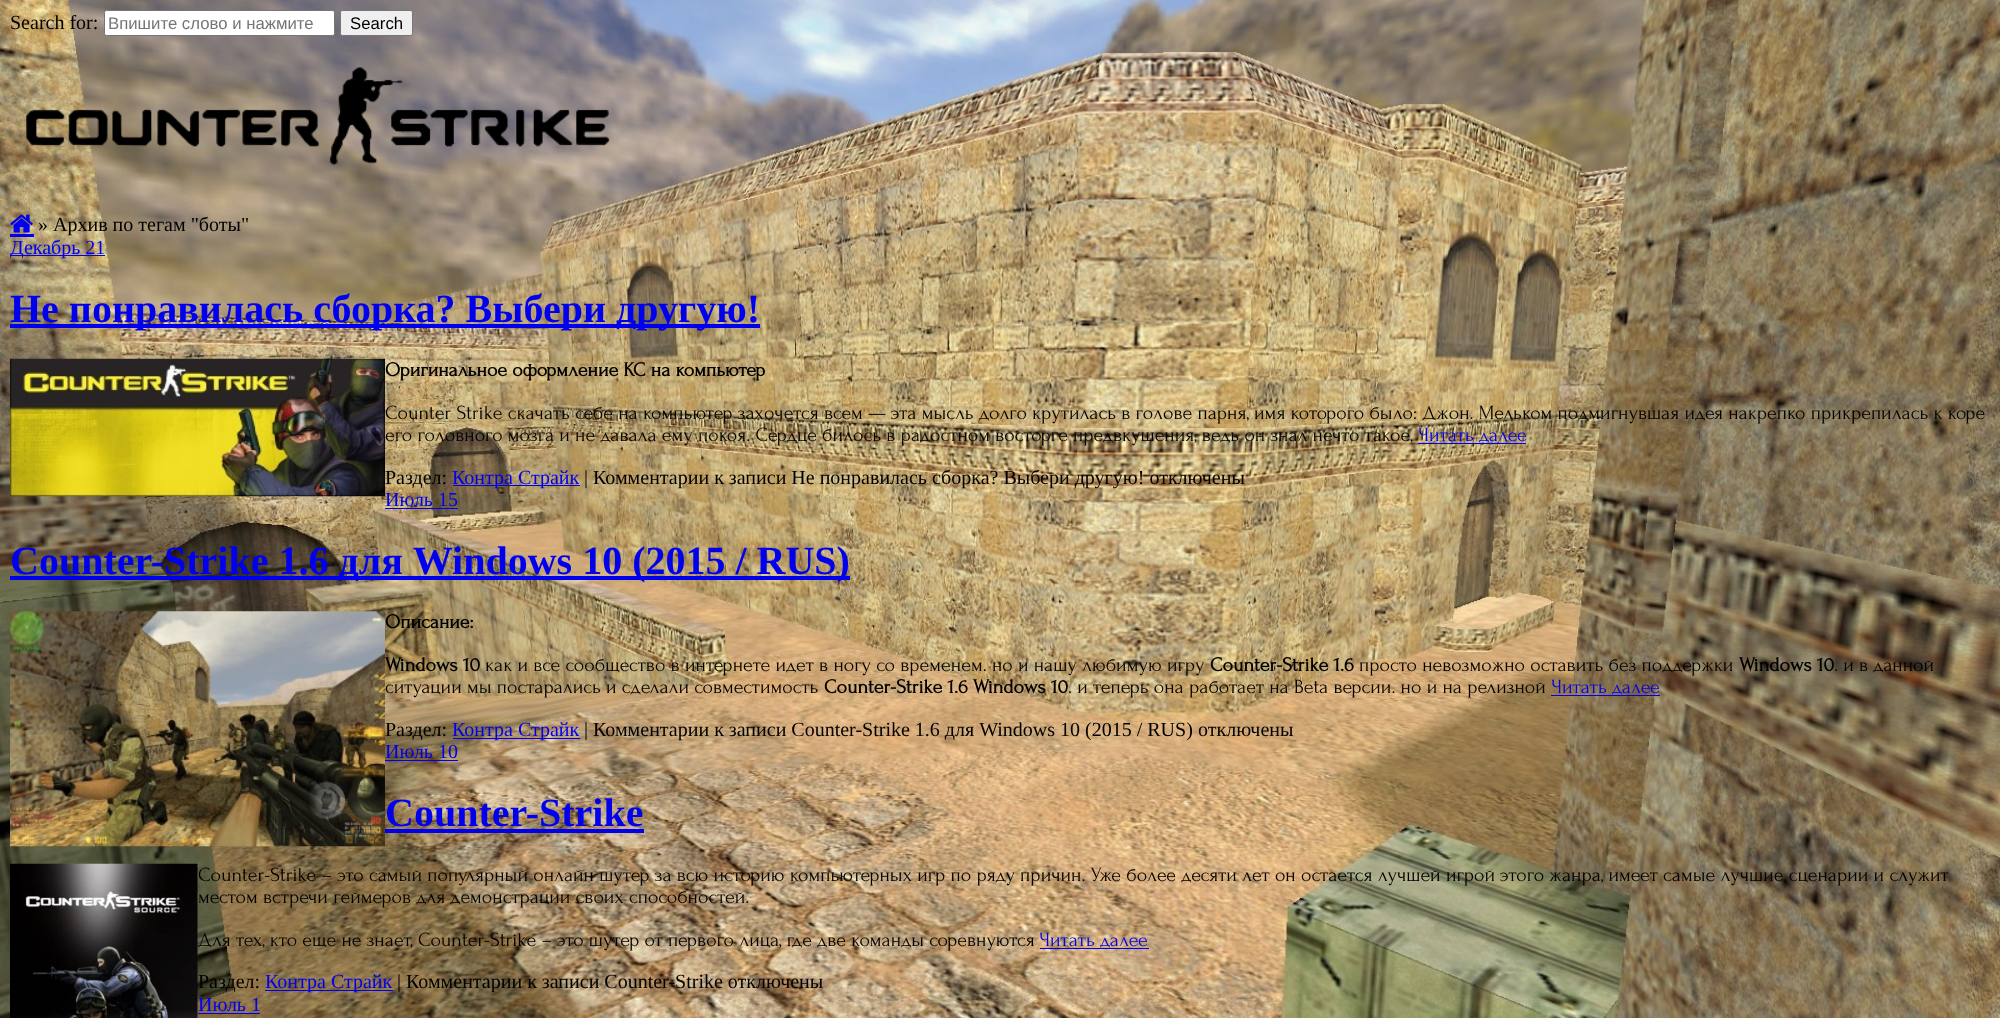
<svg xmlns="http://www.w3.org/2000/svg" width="2000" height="1018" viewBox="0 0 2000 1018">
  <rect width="100%" height="100%" fill="rgb(255,255,255)"/>
  <image x="0" y="0" width="2000" height="1018" href="pic1.png"/>
  <text x="10" y="29" font-family="Liberation Serif" font-size="20" fill="rgb(0,0,0)">Search for:</text>
  <rect x="104.5" y="10.5" width="230" height="25" rx="2" fill="rgb(255,255,255)" stroke="rgb(118,118,118)"/>
  <text x="108" y="29" font-family="Liberation Sans" font-size="16.75" fill="rgb(117,117,117)">Впишите слово и нажмите</text>
  <rect x="340.5" y="10.5" width="72" height="25" rx="2" fill="rgb(239,239,239)" stroke="rgb(118,118,118)"/>
  <text x="350" y="29" font-family="Liberation Sans" font-size="16.75" fill="rgb(0,0,0)">Search</text>
  <image x="26" y="67" width="584" height="99" href="pic2.png"/>
  <image x="10" y="214" width="23" height="19" href="pic3.png"/>
  <text x="38" y="231" font-family="Liberation Serif" font-size="20" fill="rgb(0,0,0)">» Архив по тегам "боты"</text>
  <rect x="10" y="234" width="24" height="3" fill="rgb(0,0,238)"/>
  <rect x="10" y="255" width="95" height="1" fill="rgb(0,0,238)"/>
  <text x="10" y="254" font-family="Liberation Serif" font-size="20" fill="rgb(0,0,238)">Декабрь 21</text>
  <rect x="10" y="324" width="750" height="4" fill="rgb(0,0,238)"/>
  <text x="10" y="322" font-family="Liberation Serif" font-size="40" font-weight="bold" fill="rgb(0,0,238)">Не понравилась сборка? Выбери другую!</text>
  <image x="10" y="358" width="375" height="139" href="pic4.png"/>
  <text x="385" y="376" font-family="Forum" font-size="20" font-weight="bold" fill="rgb(0,0,0)">Оригинальное оформление КС на компьютер</text>
  <g font-family="Forum" font-size="20" fill="rgb(0,0,0)">
    <text>
      <tspan x="385" y="419">Counter Strike скачать себе на компьютер захочется всем — эта мысль долго крутилась в голове парня, имя которого было: Джон. Мельком подмигнувшая идея накрепко прикрепилась к коре</tspan>
      <tspan x="385" y="441">его головного мозга и не давала ему покоя. Сердце билось в радостном восторге предвкушения, ведь он знал нечто такое,</tspan>
    </text>
  </g>
  <text x="1418" y="441" font-family="Forum" font-size="20" fill="rgb(0,0,238)">Читать далее</text>
  <rect x="1418" y="443" width="108" height="1" fill="rgb(0,0,238)"/>
  <text x="385" y="484" font-family="Liberation Serif" font-size="20" fill="rgb(0,0,0)">Раздел:</text>
  <rect x="453" y="485" width="127" height="1" fill="rgb(0,0,238)"/>
  <text x="452" y="484" font-family="Liberation Serif" font-size="20" fill="rgb(0,0,238)">Контра Страйк</text>
  <text x="584" y="484" font-family="Liberation Serif" font-size="20" fill="rgb(0,0,0)">| Комментарии к записи Не понравилась сборка? Выбери другую! отключены</text>
  <text x="385" y="506" font-family="Liberation Serif" font-size="20" fill="rgb(0,0,238)">Июль 15</text>
  <rect x="385" y="508" width="73" height="1" fill="rgb(0,0,238)"/>
  <rect x="10" y="576" width="840" height="4" fill="rgb(0,0,238)"/>
  <text x="10" y="574" font-family="Liberation Serif" font-size="40" font-weight="bold" fill="rgb(0,0,238)">Counter-Strike 1.6 для Windows 10 (2015 / RUS)</text>
  <image x="10" y="611" width="375" height="236" href="pic5.png"/>
  <g font-family="Forum" font-size="20" font-weight="bold" fill="rgb(0,0,0)">
    <text x="385" y="628">Описание:</text>
    <text x="385" y="671">Windows 10</text>
  </g>
  <text x="485" y="671" font-family="Forum" font-size="20" fill="rgb(0,0,0)">как и все сообщество в интернете идет в ногу со временем. но и нашу любимую игру</text>
  <text x="1210" y="671" font-family="Forum" font-size="20" font-weight="bold" fill="rgb(0,0,0)">Counter-Strike 1.6</text>
  <text x="1359" y="671" font-family="Forum" font-size="20" fill="rgb(0,0,0)">просто невозможно оставить без поддержки</text>
  <text x="1739" y="671" font-family="Forum" font-size="20" font-weight="bold" fill="rgb(0,0,0)">Windows 10</text>
  <g font-family="Forum" font-size="20" fill="rgb(0,0,0)">
    <text x="1834" y="671">. и в данной</text>
    <text x="385" y="693">ситуации мы постарались и сделали совместимость</text>
  </g>
  <text x="824" y="693" font-family="Forum" font-size="20" font-weight="bold" fill="rgb(0,0,0)">Counter-Strike 1.6 Windows 10</text>
  <text x="1068" y="693" font-family="Forum" font-size="20" fill="rgb(0,0,0)">. и теперь она работает на Beta версии. но и на релизной</text>
  <text x="1551" y="693" font-family="Forum" font-size="20" fill="rgb(0,0,238)">Читать далее</text>
  <rect x="1551" y="695" width="109" height="1" fill="rgb(0,0,238)"/>
  <text x="385" y="736" font-family="Liberation Serif" font-size="20" fill="rgb(0,0,0)">Раздел:</text>
  <rect x="453" y="738" width="127" height="1" fill="rgb(0,0,238)"/>
  <text x="452" y="736" font-family="Liberation Serif" font-size="20" fill="rgb(0,0,238)">Контра Страйк</text>
  <g font-family="Liberation Serif" font-size="20" fill="rgb(0,0,0)">
    <text x="584" y="736">| Комментарии к записи Counter-Strike 1.6 для Windows 10 (2015 / RUS)</text>
    <text x="1198" y="736">отключены</text>
  </g>
  <text x="385" y="758" font-family="Liberation Serif" font-size="20" fill="rgb(0,0,238)">Июль 10</text>
  <rect x="385" y="760" width="73" height="1" fill="rgb(0,0,238)"/>
  <text x="385" y="826" font-family="Liberation Serif" font-size="40" font-weight="bold" fill="rgb(0,0,238)">Counter-Strike</text>
  <rect x="385" y="829" width="259" height="4" fill="rgb(0,0,238)"/>
  <image x="10" y="863" width="188" height="155" href="pic6.png"/>
  <g font-family="Forum" font-size="20" fill="rgb(0,0,0)">
    <text>
      <tspan x="198" y="881">Counter-Strike – это самый популярный онлайн шутер за всю историю компьютерных игр по ряду причин. Уже более десяти лет он остается лучшей игрой этого жанра, имеет самые лучшие сценарии и служит</tspan>
      <tspan x="198" y="903">местом встречи геймеров для демонстрации своих способностей.</tspan>
    </text>
    <text x="198" y="946">Для тех, кто еще не знает, Counter-Strike – это шутер от первого лица, где две команды соревнуются</text>
  </g>
  <text x="1039" y="946" font-family="Forum" font-size="20" fill="rgb(0,0,238)">Читать далее</text>
  <rect x="1040" y="948" width="109" height="1" fill="rgb(0,0,238)"/>
  <text x="198" y="988" font-family="Liberation Serif" font-size="20" fill="rgb(0,0,0)">Раздел:</text>
  <rect x="265" y="990" width="128" height="1" fill="rgb(0,0,238)"/>
  <text x="265" y="988" font-family="Liberation Serif" font-size="20" fill="rgb(0,0,238)">Контра Страйк</text>
  <text x="397" y="988" font-family="Liberation Serif" font-size="20" fill="rgb(0,0,0)">| Комментарии к записи Counter-Strike отключены</text>
  <text x="198" y="1011" font-family="Liberation Serif" font-size="20" fill="rgb(0,0,238)">Июль 1</text>
  <rect x="198" y="1013" width="62" height="1" fill="rgb(0,0,238)"/>
</svg>
